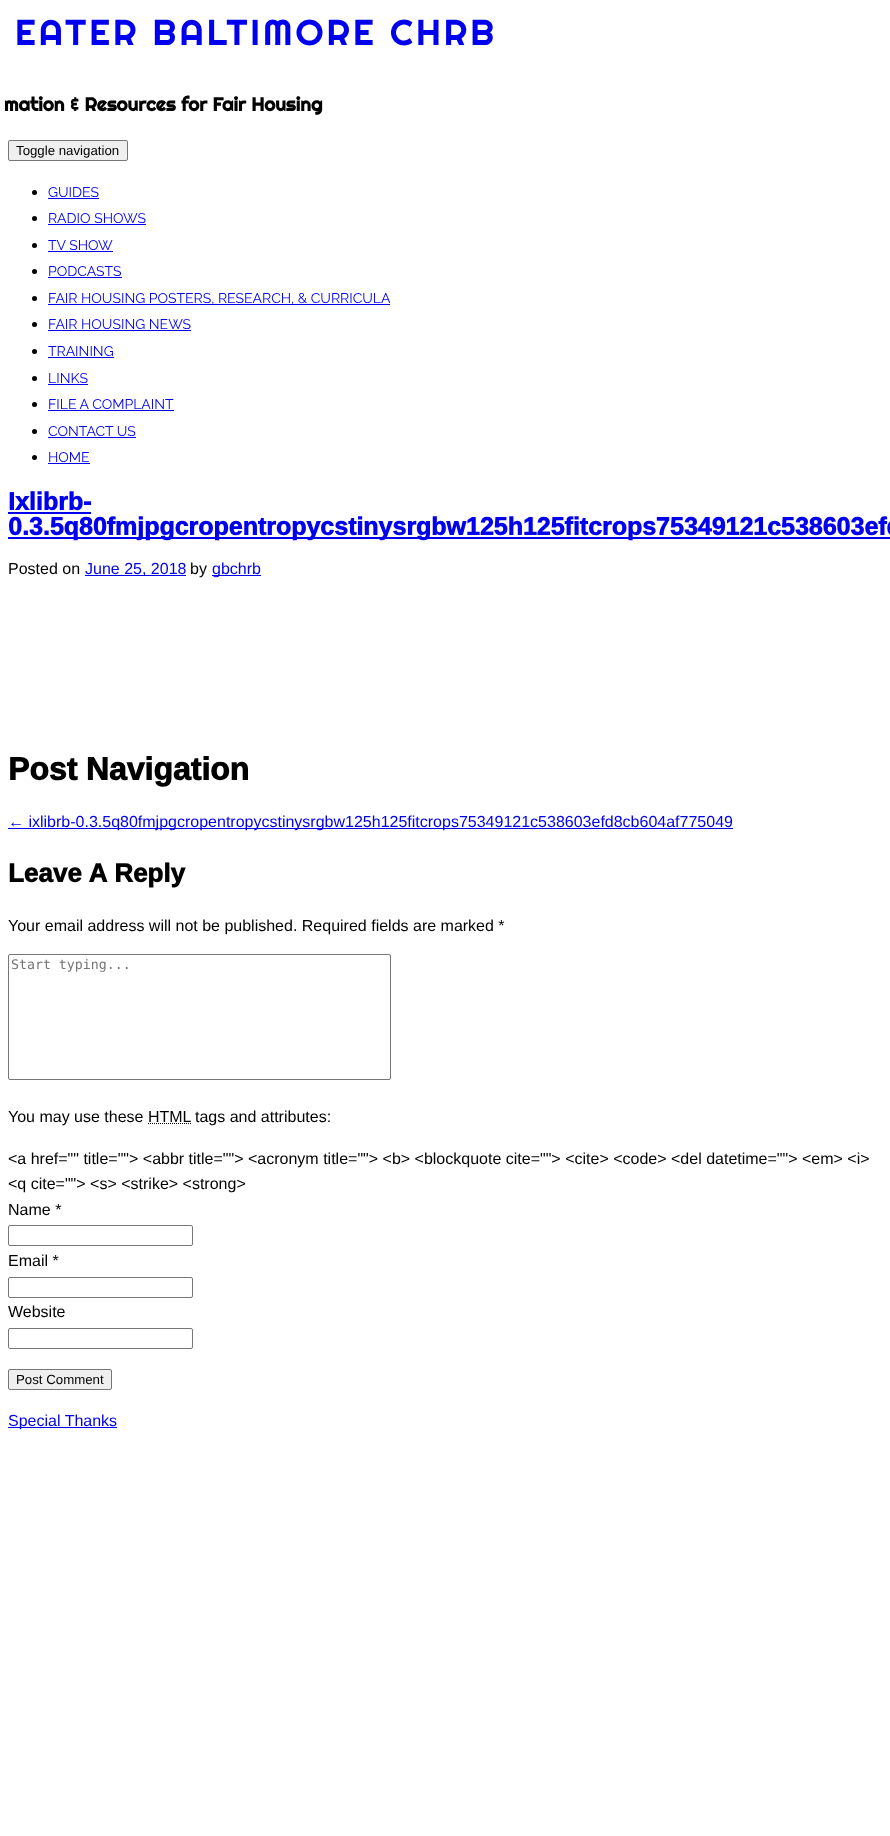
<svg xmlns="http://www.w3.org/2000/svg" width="890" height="1836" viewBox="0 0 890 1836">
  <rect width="100%" height="100%" fill="rgb(255,255,255)"/>
  <text x="15" y="45" font-family="Righteous" font-size="36" letter-spacing="3" fill="rgb(0,0,238)">EATER BALTIMORE CHRB</text>
  <text x="4" y="111" font-family="Righteous" font-size="19" font-weight="bold" fill="rgb(0,0,0)">mation &amp; Resources for Fair Housing</text>
  <rect x="8.5" y="140.5" width="119" height="20" rx="1.5" fill="rgb(239,239,239)" stroke="rgb(118,118,118)"/>
  <text x="16" y="155" font-family="Liberation Sans" font-size="13.25" fill="rgb(0,0,0)">Toggle navigation</text>
  <circle cx="34.5" cy="192.5" r="2.5" fill="rgb(0,0,0)"/>
  <text x="48" y="197" font-family="Raleway" font-size="14" font-weight="100" fill="rgb(0,0,238)">GUIDES</text>
  <rect x="48" y="198" width="51" height="1" fill="rgb(0,0,238)"/>
  <circle cx="34.5" cy="218.5" r="2.5" fill="rgb(0,0,0)"/>
  <text x="48" y="223" font-family="Raleway" font-size="14" font-weight="100" fill="rgb(0,0,238)">RADIO SHOWS</text>
  <rect x="48" y="224" width="98" height="1" fill="rgb(0,0,238)"/>
  <circle cx="34.5" cy="245.5" r="2.5" fill="rgb(0,0,0)"/>
  <text x="48" y="250" font-family="Raleway" font-size="14" font-weight="100" fill="rgb(0,0,238)">TV SHOW</text>
  <rect x="48" y="251" width="65" height="1" fill="rgb(0,0,238)"/>
  <circle cx="34.5" cy="271.5" r="2.5" fill="rgb(0,0,0)"/>
  <text x="48" y="276" font-family="Raleway" font-size="14" font-weight="100" fill="rgb(0,0,238)">PODCASTS</text>
  <rect x="48" y="277" width="74" height="1" fill="rgb(0,0,238)"/>
  <circle cx="34.5" cy="298.5" r="2.5" fill="rgb(0,0,0)"/>
  <rect x="48" y="304" width="342" height="1" fill="rgb(0,0,238)"/>
  <text x="48" y="303" font-family="Raleway" font-size="14" font-weight="100" fill="rgb(0,0,238)">FAIR HOUSING POSTERS, RESEARCH, &amp; CURRICULA</text>
  <circle cx="34.5" cy="324.5" r="2.5" fill="rgb(0,0,0)"/>
  <text x="48" y="329" font-family="Raleway" font-size="14" font-weight="100" fill="rgb(0,0,238)">FAIR HOUSING NEWS</text>
  <rect x="48" y="330" width="143" height="1" fill="rgb(0,0,238)"/>
  <circle cx="34.5" cy="351.5" r="2.5" fill="rgb(0,0,0)"/>
  <text x="48" y="356" font-family="Raleway" font-size="14" font-weight="100" fill="rgb(0,0,238)">TRAINING</text>
  <rect x="48" y="357" width="66" height="1" fill="rgb(0,0,238)"/>
  <circle cx="34.5" cy="378.5" r="2.5" fill="rgb(0,0,0)"/>
  <text x="48" y="383" font-family="Raleway" font-size="14" font-weight="100" fill="rgb(0,0,238)">LINKS</text>
  <rect x="48" y="384" width="40" height="1" fill="rgb(0,0,238)"/>
  <circle cx="34.5" cy="404.5" r="2.5" fill="rgb(0,0,0)"/>
  <text x="48" y="409" font-family="Raleway" font-size="14" font-weight="100" fill="rgb(0,0,238)">FILE A COMPLAINT</text>
  <rect x="48" y="410" width="126" height="1" fill="rgb(0,0,238)"/>
  <circle cx="34.5" cy="431.5" r="2.5" fill="rgb(0,0,0)"/>
  <text x="48" y="436" font-family="Raleway" font-size="14" font-weight="100" fill="rgb(0,0,238)">CONTACT US</text>
  <rect x="48" y="437" width="88" height="1" fill="rgb(0,0,238)"/>
  <circle cx="34.5" cy="457.5" r="2.5" fill="rgb(0,0,0)"/>
  <text x="48" y="462" font-family="Raleway" font-size="14" font-weight="100" fill="rgb(0,0,238)">HOME</text>
  <rect x="48" y="463" width="42" height="1" fill="rgb(0,0,238)"/>
  <text x="8" y="510" font-family="Ramabhadra" font-size="25" font-weight="bold" fill="rgb(0,0,238)">Ixlibrb-</text>
  <rect x="8" y="512" width="83" height="2" fill="rgb(0,0,238)"/>
  <rect x="8" y="537" width="882" height="2" fill="rgb(0,0,238)"/>
  <text x="8" y="535" font-family="Ramabhadra" font-size="25" font-weight="bold" fill="rgb(0,0,238)">0.3.5q80fmjpgcropentropycstinysrgbw125h125fitcrops75349121c538603efd</text>
  <text x="8" y="574" font-family="Liberation Sans" font-size="16" fill="rgb(0,0,0)">Posted on</text>
  <rect x="85" y="575" width="101" height="1" fill="rgb(0,0,238)"/>
  <text x="85" y="574" font-family="Liberation Sans" font-size="16" fill="rgb(0,0,238)">June 25, 2018</text>
  <text x="190" y="574" font-family="Liberation Sans" font-size="16" fill="rgb(0,0,0)">by</text>
  <rect x="212" y="575" width="49" height="1" fill="rgb(0,0,238)"/>
  <text x="212" y="574" font-family="Liberation Sans" font-size="16" fill="rgb(0,0,238)">gbchrb</text>
  <text x="8" y="780" font-family="Ramabhadra" font-size="32" font-weight="bold" fill="rgb(0,0,0)">Post Navigation</text>
  <rect x="8" y="828" width="725" height="1" fill="rgb(0,0,238)"/>
  <text x="8" y="827" font-family="Liberation Sans" font-size="16" fill="rgb(0,0,238)">← ixlibrb-0.3.5q80fmjpgcropentropycstinysrgbw125h125fitcrops75349121c538603efd8cb604af775049</text>
  <text x="8" y="882" font-family="Ramabhadra" font-size="26" font-weight="bold" fill="rgb(0,0,0)">Leave A Reply</text>
  <text x="8" y="931" font-family="Liberation Sans" font-size="16" fill="rgb(0,0,0)">Your email address will not be published. Required fields are marked *</text>
  <rect x="8.5" y="954.5" width="382" height="125" rx="1.5" fill="none" stroke="rgb(118,118,118)"/>
  <text x="11" y="969" font-family="DejaVu Sans Mono" font-size="13.25" fill="rgb(117,117,117)">Start typing...</text>
  <g font-family="Liberation Sans" font-size="16" fill="rgb(0,0,0)">
    <text x="8" y="1122">You may use these HTML</text>
    <text x="195" y="1122">tags and attributes:</text>
  </g>
  <path d="M148 1123.5H191" fill="none" stroke="rgb(0,0,0)" stroke-dasharray="1 1"/>
  <g font-family="Liberation Sans" font-size="16" fill="rgb(0,0,0)">
    <text>
      <tspan x="8" y="1164">&lt;a href="" title=""&gt; &lt;abbr title=""&gt; &lt;acronym title=""&gt; &lt;b&gt; &lt;blockquote cite=""&gt; &lt;cite&gt; &lt;code&gt; &lt;del datetime=""&gt; &lt;em&gt; &lt;i&gt;</tspan>
      <tspan x="8" y="1189">&lt;q cite=""&gt; &lt;s&gt; &lt;strike&gt; &lt;strong&gt;</tspan>
      <tspan x="8" y="1215">Name *</tspan>
    </text>
  </g>
  <rect x="8.5" y="1225.5" width="184" height="20" rx="1.5" fill="none" stroke="rgb(118,118,118)"/>
  <text x="8" y="1266" font-family="Liberation Sans" font-size="16" fill="rgb(0,0,0)">Email *</text>
  <rect x="8.5" y="1277.5" width="184" height="20" rx="1.5" fill="none" stroke="rgb(118,118,118)"/>
  <text x="8" y="1317" font-family="Liberation Sans" font-size="16" fill="rgb(0,0,0)">Website</text>
  <rect x="8.5" y="1328.5" width="184" height="20" rx="1.5" fill="none" stroke="rgb(118,118,118)"/>
  <rect x="8.5" y="1369.5" width="103" height="20" rx="1.5" fill="rgb(239,239,239)" stroke="rgb(118,118,118)"/>
  <text x="16" y="1384" font-family="Liberation Sans" font-size="13.25" fill="rgb(0,0,0)">Post Comment</text>
  <rect x="8" y="1427" width="109" height="1" fill="rgb(0,0,238)"/>
  <text x="8" y="1426" font-family="Liberation Sans" font-size="16" fill="rgb(0,0,238)">Special Thanks</text>
</svg>
